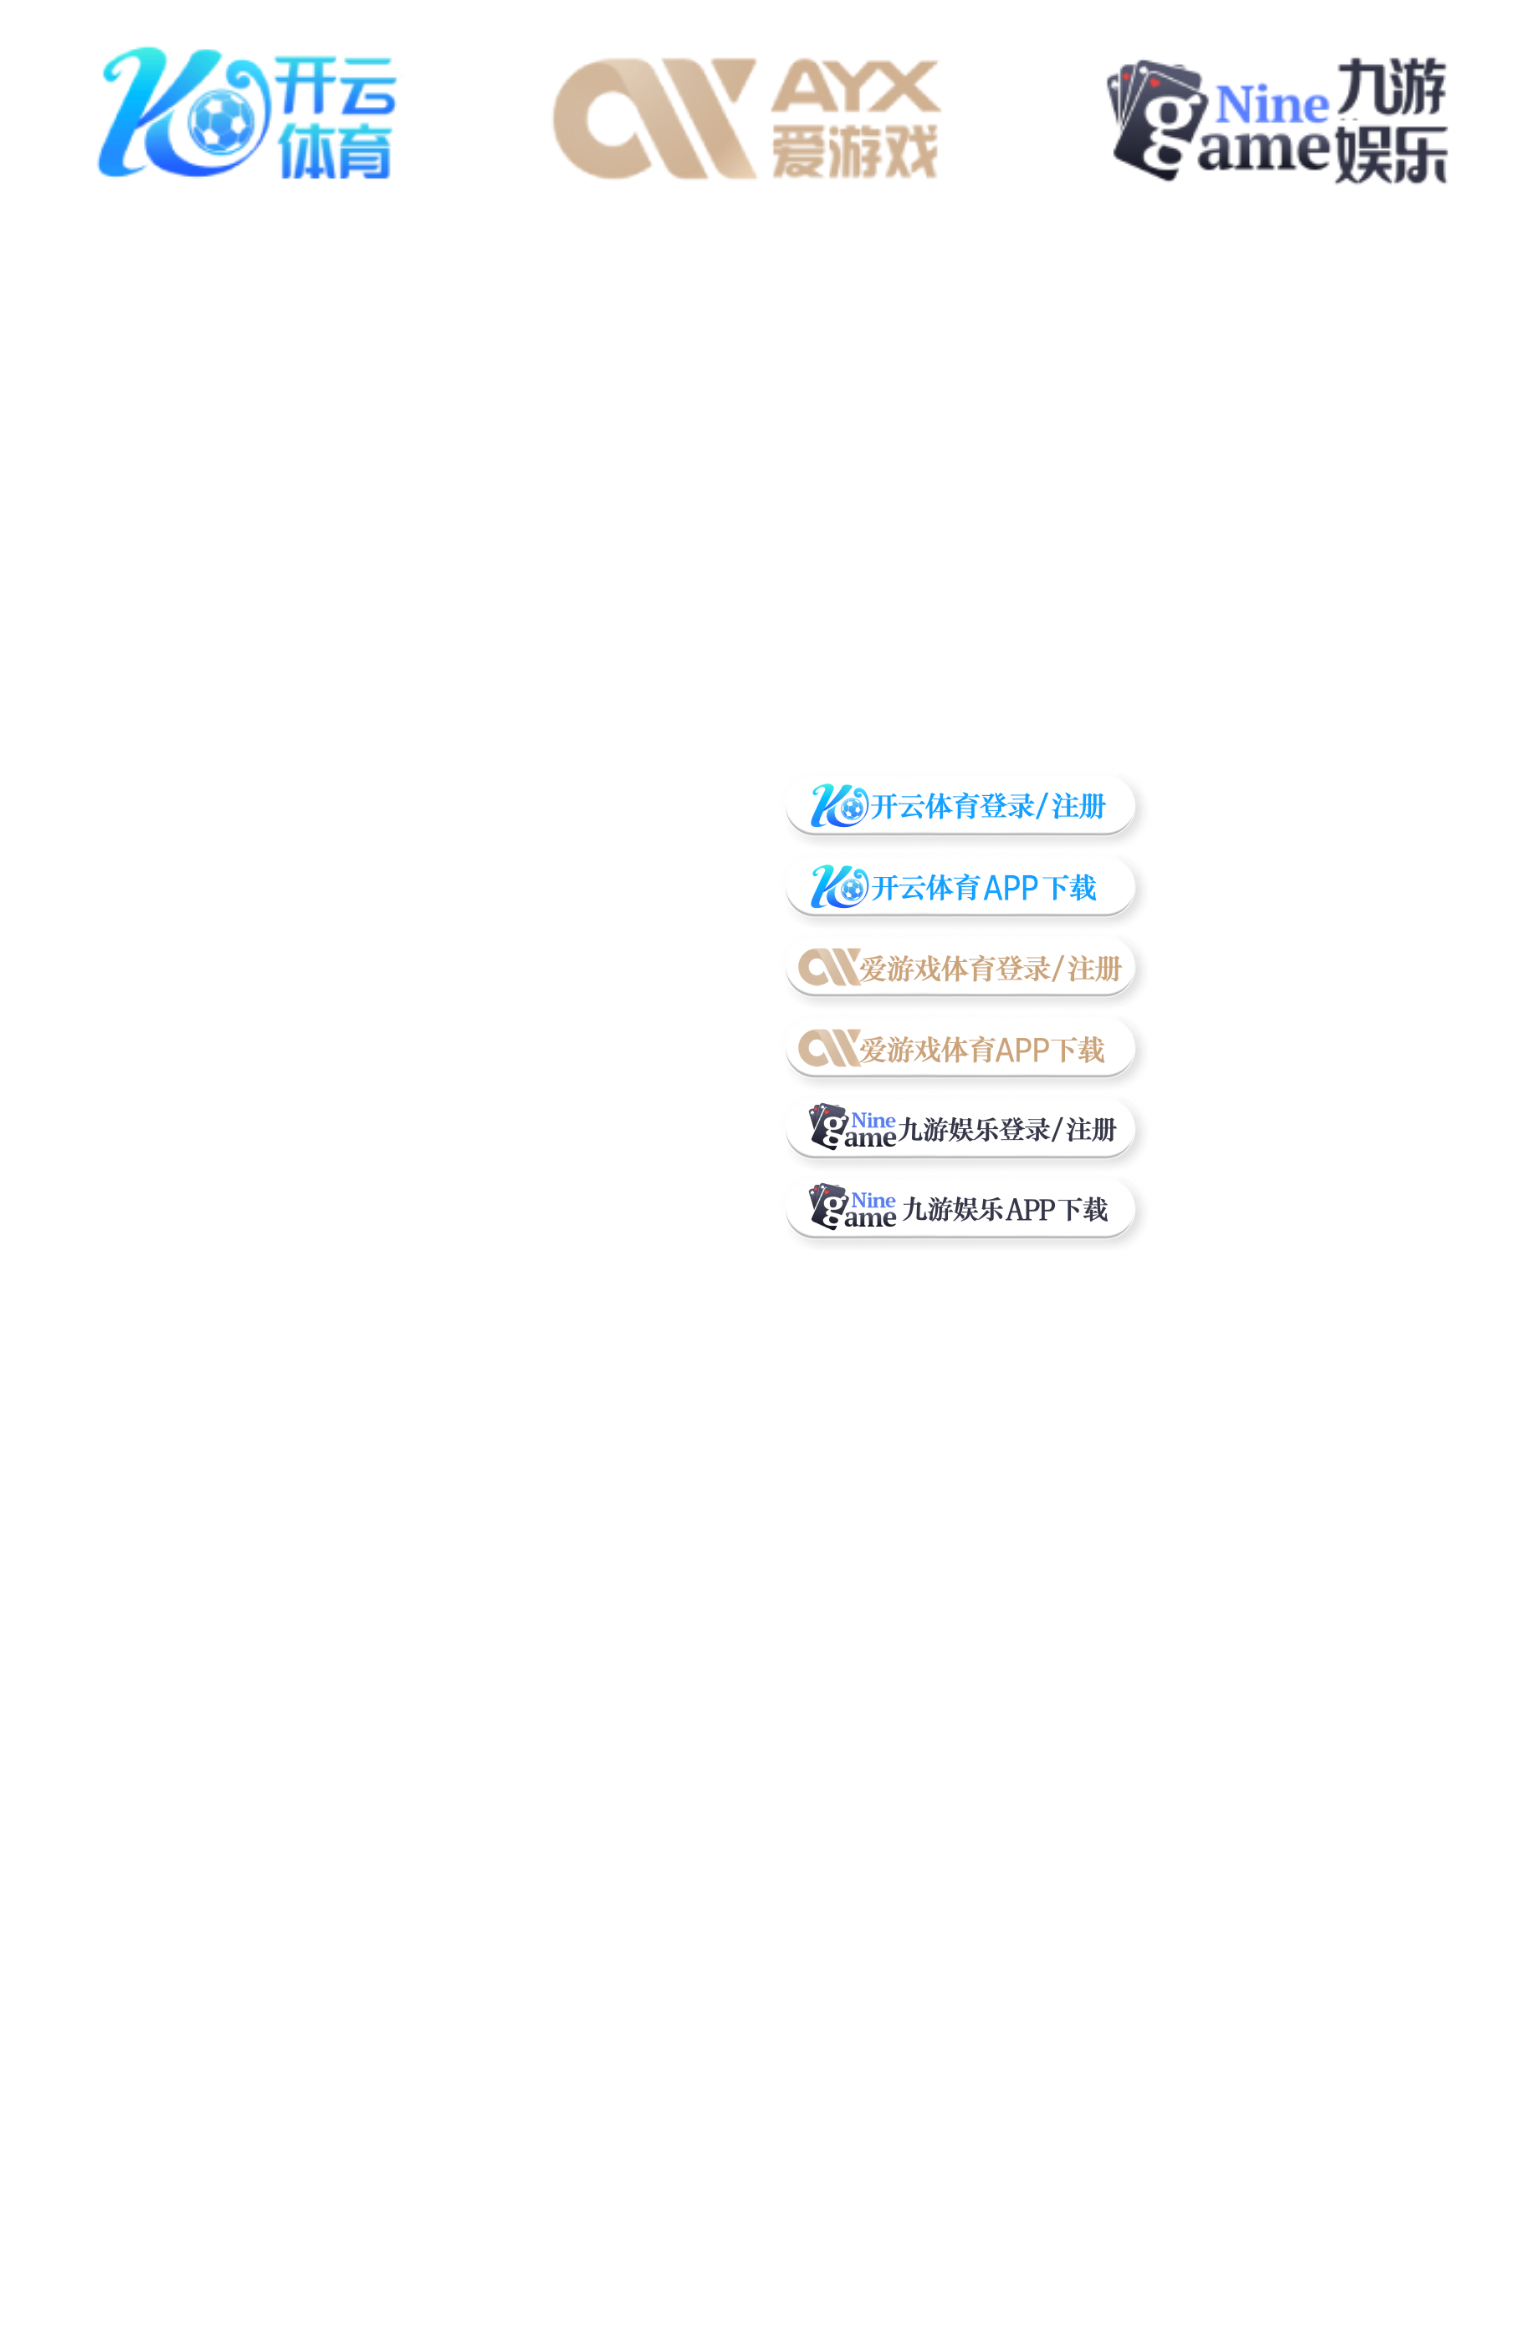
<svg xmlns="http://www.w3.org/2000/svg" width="1536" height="2350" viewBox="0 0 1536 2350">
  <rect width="100%" height="100%" fill="rgb(255,255,255)"/>
  <image x="96" y="45" width="1353" height="1205" href="pic1.png"/>
</svg>
